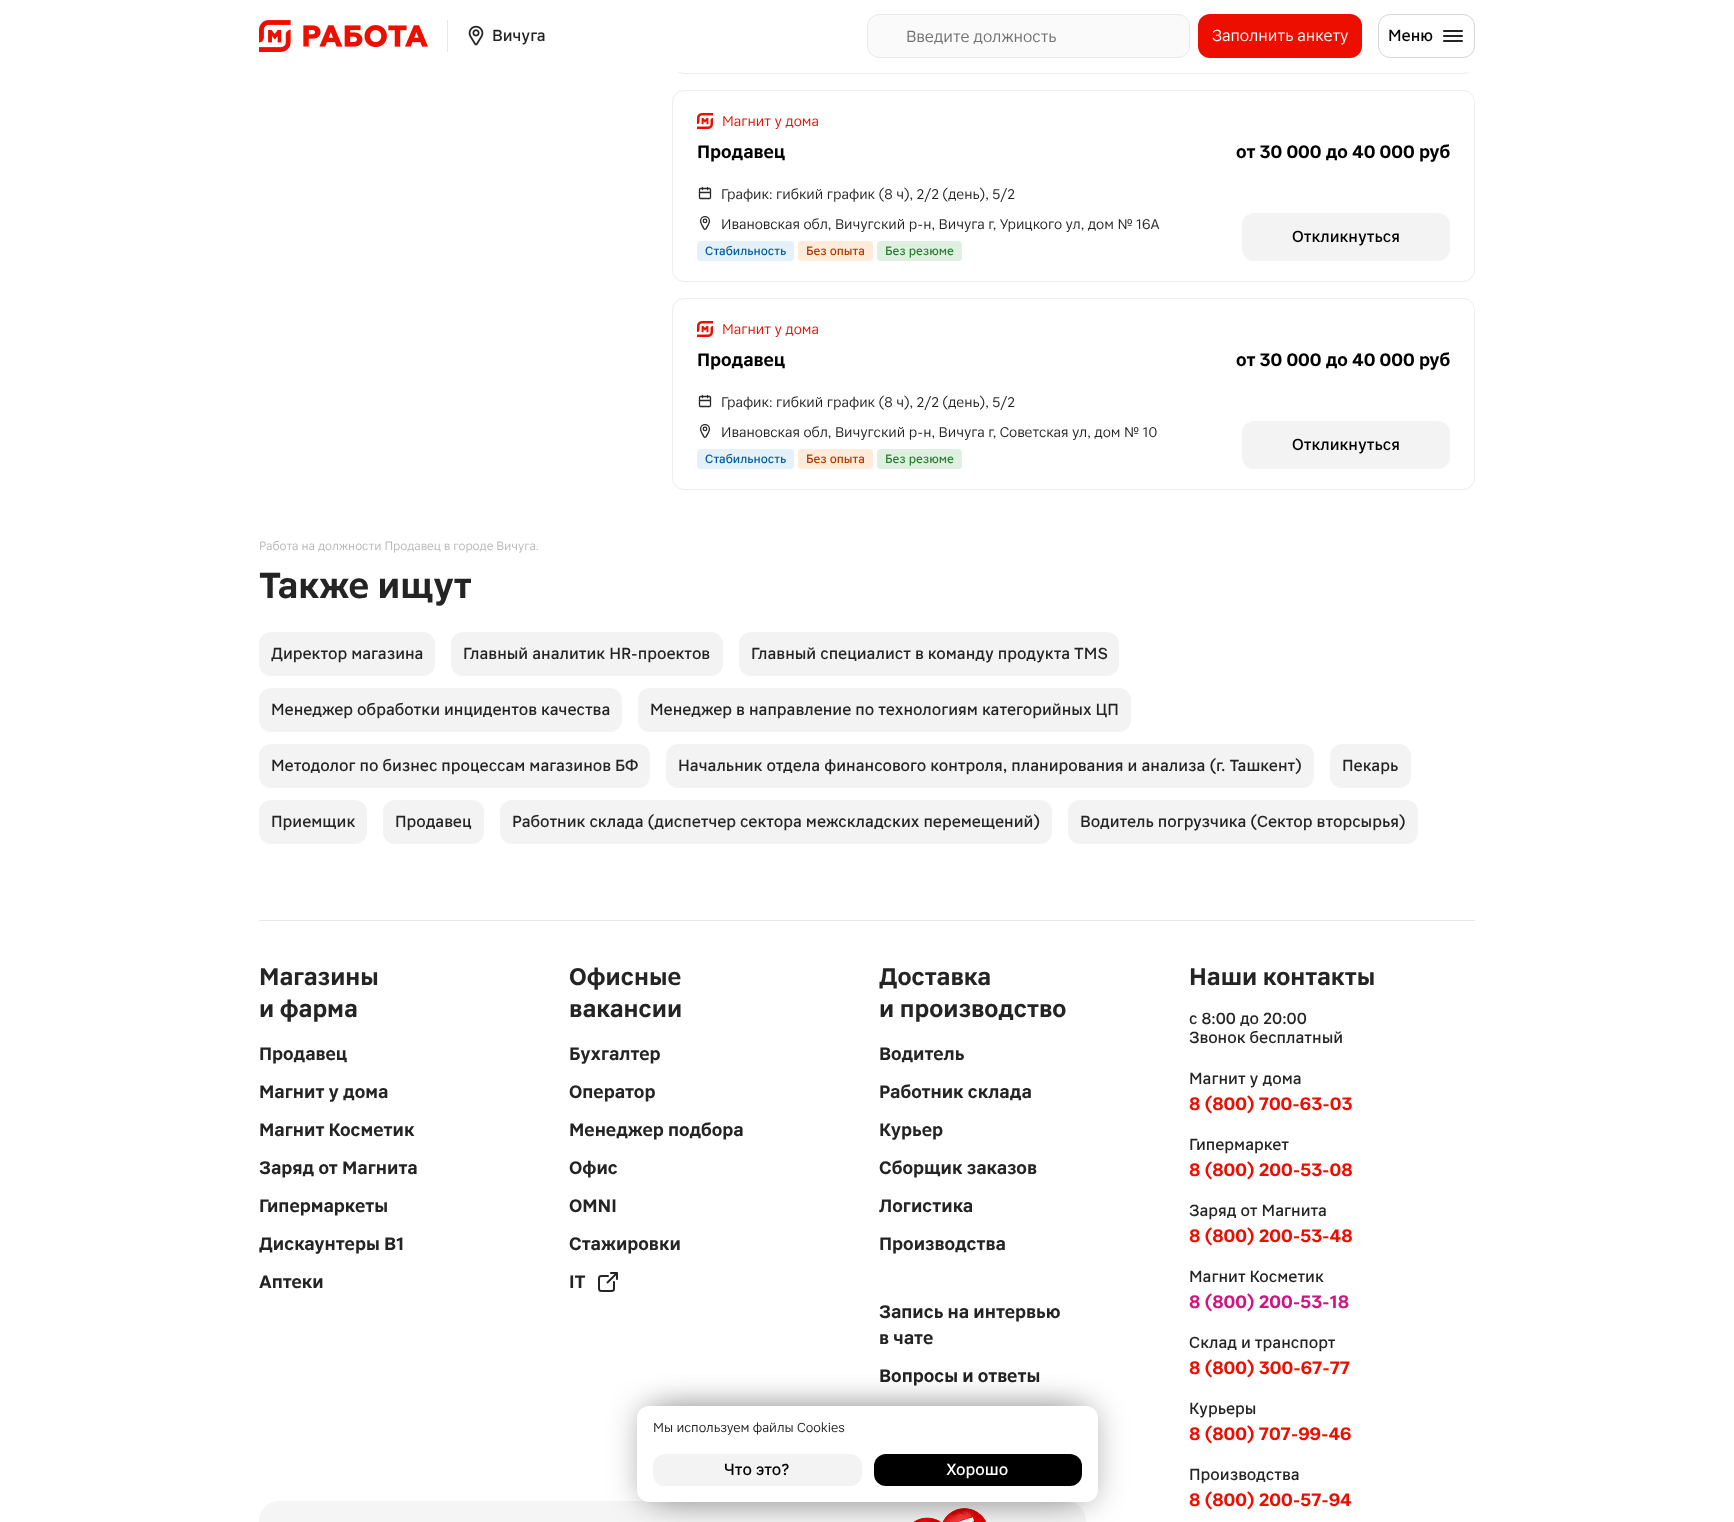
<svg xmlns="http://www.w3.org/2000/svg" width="1734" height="1522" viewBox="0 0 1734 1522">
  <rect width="100%" height="100%" fill="rgb(255,255,255)"/>
  <rect x="672.5" y="-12.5" width="802" height="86" rx="11.5" fill="none" stroke="rgb(237,237,237)"/>
  <rect x="672" y="0" width="803" height="72" fill="rgb(255,255,255)"/>
  <rect x="447" y="20" width="1" height="32" fill="rgb(231,231,231)"/>
  <image x="259" y="20" width="169" height="32" href="pic1.png"/>
  <image x="468" y="25" width="16" height="21" href="pic2.png"/>
  <text x="492" y="41" font-family="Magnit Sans" font-size="16" font-weight="500" fill="rgb(36,36,36)">Вичуга</text>
  <rect x="867.5" y="14.5" width="322" height="43" rx="11.5" fill="rgb(250,250,250)" stroke="rgb(231,231,231)"/>
  <text x="906" y="42" font-family="Magnit Sans" font-size="16" fill="rgb(113,113,113)">Введите должность</text>
  <rect x="1198" y="14" width="164" height="44" rx="12" fill="rgb(237,14,0)"/>
  <text x="1212" y="41" font-family="Magnit Sans" font-size="16" fill="rgb(255,255,255)">Заполнить анкету</text>
  <rect x="1378.5" y="14.5" width="96" height="43" rx="11.5" fill="none" stroke="rgb(214,214,214)"/>
  <text x="1388" y="41" font-family="Magnit Sans" font-size="16" font-weight="500" fill="rgb(0,0,0)">Меню</text>
  <image x="1443" y="30" width="20" height="12" href="pic3.png"/>
  <rect x="672.5" y="90.5" width="802" height="191" rx="11.5" fill="none" stroke="rgb(237,237,237)"/>
  <image x="697" y="113" width="16" height="16" href="pic4.png"/>
  <text x="722" y="126" font-family="Magnit Sans" font-size="14" fill="rgb(237,14,0)">Магнит у дома</text>
  <g font-family="Magnit Sans" font-size="18" font-weight="bold" fill="rgb(0,0,0)">
    <text x="697" y="158">Продавец</text>
    <text x="1236" y="158">от 30 000 до 40 000 руб</text>
  </g>
  <image x="698" y="186" width="14" height="14" href="pic5.png"/>
  <text x="721" y="199" font-family="Magnit Sans" font-size="14" fill="rgb(36,36,36)">График: гибкий график (8 ч), 2/2 (день), 5/2</text>
  <image x="699" y="216" width="12" height="14" href="pic6.png"/>
  <text x="721" y="229" font-family="Magnit Sans" font-size="14" fill="rgb(36,36,36)">Ивановская обл, Вичугский р-н, Вичуга г, Урицкого ул, дом № 16А</text>
  <rect x="1242" y="213" width="208" height="48" rx="12" fill="rgb(243,243,243)"/>
  <text x="1292" y="242" font-family="Magnit Sans" font-size="16" font-weight="500" fill="rgb(0,0,0)">Откликнуться</text>
  <rect x="697" y="241" width="97" height="20" rx="4" fill="rgb(229,241,249)"/>
  <text x="705" y="255" font-family="Magnit Sans" font-size="12" font-weight="500" fill="rgb(0,92,159)">Стабильность</text>
  <rect x="798" y="241" width="75" height="20" rx="4" fill="rgb(254,235,217)"/>
  <text x="806" y="255" font-family="Magnit Sans" font-size="12" font-weight="500" fill="rgb(172,62,0)">Без опыта</text>
  <rect x="877" y="241" width="85" height="20" rx="4" fill="rgb(223,240,224)"/>
  <text x="885" y="255" font-family="Magnit Sans" font-size="12" font-weight="500" fill="rgb(44,126,52)">Без резюме</text>
  <rect x="672.5" y="298.5" width="802" height="191" rx="11.5" fill="none" stroke="rgb(237,237,237)"/>
  <image x="697" y="321" width="16" height="16" href="pic4.png"/>
  <text x="722" y="334" font-family="Magnit Sans" font-size="14" fill="rgb(237,14,0)">Магнит у дома</text>
  <g font-family="Magnit Sans" font-size="18" font-weight="bold" fill="rgb(0,0,0)">
    <text x="697" y="366">Продавец</text>
    <text x="1236" y="366">от 30 000 до 40 000 руб</text>
  </g>
  <image x="698" y="394" width="14" height="14" href="pic5.png"/>
  <text x="721" y="407" font-family="Magnit Sans" font-size="14" fill="rgb(36,36,36)">График: гибкий график (8 ч), 2/2 (день), 5/2</text>
  <image x="699" y="424" width="12" height="14" href="pic6.png"/>
  <text x="721" y="437" font-family="Magnit Sans" font-size="14" fill="rgb(36,36,36)">Ивановская обл, Вичугский р-н, Вичуга г, Советская ул, дом № 10</text>
  <rect x="1242" y="421" width="208" height="48" rx="12" fill="rgb(243,243,243)"/>
  <text x="1292" y="450" font-family="Magnit Sans" font-size="16" font-weight="500" fill="rgb(0,0,0)">Откликнуться</text>
  <rect x="697" y="449" width="97" height="20" rx="4" fill="rgb(229,241,249)"/>
  <text x="705" y="463" font-family="Magnit Sans" font-size="12" font-weight="500" fill="rgb(0,92,159)">Стабильность</text>
  <rect x="798" y="449" width="75" height="20" rx="4" fill="rgb(254,235,217)"/>
  <text x="806" y="463" font-family="Magnit Sans" font-size="12" font-weight="500" fill="rgb(172,62,0)">Без опыта</text>
  <rect x="877" y="449" width="85" height="20" rx="4" fill="rgb(223,240,224)"/>
  <text x="885" y="463" font-family="Magnit Sans" font-size="12" font-weight="500" fill="rgb(44,126,52)">Без резюме</text>
  <text x="259" y="550" font-family="Magnit Sans" font-size="12" fill="rgb(184,184,184)">Работа на должности Продавец в городе Вичуга.</text>
  <text x="259" y="598" font-family="Magnit Sans" font-size="36" font-weight="bold" fill="rgb(36,36,36)">Также ищут</text>
  <rect x="259" y="632" width="176" height="44" rx="12" fill="rgb(243,243,243)"/>
  <text x="271" y="659" font-family="Magnit Sans" font-size="16" font-weight="500" fill="rgb(36,36,36)">Директор магазина</text>
  <rect x="451" y="632" width="272" height="44" rx="12" fill="rgb(243,243,243)"/>
  <text x="463" y="659" font-family="Magnit Sans" font-size="16" font-weight="500" fill="rgb(36,36,36)">Главный аналитик HR-проектов</text>
  <rect x="739" y="632" width="380" height="44" rx="12" fill="rgb(243,243,243)"/>
  <text x="751" y="659" font-family="Magnit Sans" font-size="16" font-weight="500" fill="rgb(36,36,36)">Главный специалист в команду продукта TMS</text>
  <rect x="259" y="688" width="363" height="44" rx="12" fill="rgb(243,243,243)"/>
  <text x="271" y="715" font-family="Magnit Sans" font-size="16" font-weight="500" fill="rgb(36,36,36)">Менеджер обработки инцидентов качества</text>
  <rect x="638" y="688" width="493" height="44" rx="12" fill="rgb(243,243,243)"/>
  <text x="650" y="715" font-family="Magnit Sans" font-size="16" font-weight="500" fill="rgb(36,36,36)">Менеджер в направление по технологиям категорийных ЦП</text>
  <rect x="259" y="744" width="391" height="44" rx="12" fill="rgb(243,243,243)"/>
  <text x="271" y="771" font-family="Magnit Sans" font-size="16" font-weight="500" fill="rgb(36,36,36)">Методолог по бизнес процессам магазинов БФ</text>
  <rect x="666" y="744" width="648" height="44" rx="12" fill="rgb(243,243,243)"/>
  <text x="678" y="771" font-family="Magnit Sans" font-size="16" font-weight="500" fill="rgb(36,36,36)">Начальник отдела финансового контроля, планирования и анализа (г. Ташкент)</text>
  <rect x="1330" y="744" width="81" height="44" rx="12" fill="rgb(243,243,243)"/>
  <text x="1342" y="771" font-family="Magnit Sans" font-size="16" font-weight="500" fill="rgb(36,36,36)">Пекарь</text>
  <rect x="259" y="800" width="108" height="44" rx="12" fill="rgb(243,243,243)"/>
  <text x="271" y="827" font-family="Magnit Sans" font-size="16" font-weight="500" fill="rgb(36,36,36)">Приемщик</text>
  <rect x="383" y="800" width="101" height="44" rx="12" fill="rgb(243,243,243)"/>
  <text x="395" y="827" font-family="Magnit Sans" font-size="16" font-weight="500" fill="rgb(36,36,36)">Продавец</text>
  <rect x="500" y="800" width="552" height="44" rx="12" fill="rgb(243,243,243)"/>
  <text x="512" y="827" font-family="Magnit Sans" font-size="16" font-weight="500" fill="rgb(36,36,36)">Работник склада (диспетчер сектора межскладских перемещений)</text>
  <rect x="1068" y="800" width="350" height="44" rx="12" fill="rgb(243,243,243)"/>
  <text x="1080" y="827" font-family="Magnit Sans" font-size="16" font-weight="500" fill="rgb(36,36,36)">Водитель погрузчика (Сектор вторсырья)</text>
  <rect x="259" y="920" width="1216" height="1" fill="rgb(232,232,232)"/>
  <g font-family="Magnit Sans" font-size="24" font-weight="bold" fill="rgb(36,36,36)">
    <text>
      <tspan x="259" y="985">Магазины</tspan>
      <tspan x="259" y="1017">и фарма</tspan>
    </text>
  </g>
  <g font-family="Magnit Sans" font-size="18" font-weight="bold" fill="rgb(36,36,36)">
    <text x="259" y="1060">Продавец</text>
    <text x="259" y="1098">Магнит у дома</text>
    <text x="259" y="1136">Магнит Косметик</text>
    <text x="259" y="1174">Заряд от Магнита</text>
    <text x="259" y="1212">Гипермаркеты</text>
    <text x="259" y="1250">Дискаунтеры В1</text>
    <text x="259" y="1288">Аптеки</text>
  </g>
  <g font-family="Magnit Sans" font-size="24" font-weight="bold" fill="rgb(36,36,36)">
    <text>
      <tspan x="569" y="985">Офисные</tspan>
      <tspan x="569" y="1017">вакансии</tspan>
    </text>
  </g>
  <g font-family="Magnit Sans" font-size="18" font-weight="bold" fill="rgb(36,36,36)">
    <text x="569" y="1060">Бухгалтер</text>
    <text x="569" y="1098">Оператор</text>
    <text x="569" y="1136">Менеджер подбора</text>
    <text x="569" y="1174">Офис</text>
    <text x="569" y="1212">OMNI</text>
    <text x="569" y="1250">Стажировки</text>
    <text x="569" y="1288">IT</text>
  </g>
  <image x="598" y="1272" width="20" height="20" href="pic7.png"/>
  <g font-family="Magnit Sans" font-size="24" font-weight="bold" fill="rgb(36,36,36)">
    <text>
      <tspan x="879" y="985">Доставка</tspan>
      <tspan x="879" y="1017">и производство</tspan>
    </text>
  </g>
  <g font-family="Magnit Sans" font-size="18" font-weight="bold" fill="rgb(36,36,36)">
    <text x="879" y="1060">Водитель</text>
    <text x="879" y="1098">Работник склада</text>
    <text x="879" y="1136">Курьер</text>
    <text x="879" y="1174">Сборщик заказов</text>
    <text x="879" y="1212">Логистика</text>
    <text x="879" y="1250">Производства</text>
    <text>
      <tspan x="879" y="1318">Запись на интервью</tspan>
      <tspan x="879" y="1344">в чате</tspan>
    </text>
    <text x="879" y="1382">Вопросы и ответы</text>
  </g>
  <rect x="259" y="1501" width="827" height="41" rx="20" fill="rgb(245,245,245)"/>
  <image x="913" y="1508" width="73" height="14" href="pic8.png"/>
  <text x="1189" y="985" font-family="Magnit Sans" font-size="24" font-weight="bold" fill="rgb(36,36,36)">Наши контакты</text>
  <g font-family="Magnit Sans" font-size="16" font-weight="500" fill="rgb(36,36,36)">
    <text>
      <tspan x="1189" y="1024">с 8:00 до 20:00</tspan>
      <tspan x="1189" y="1043">Звонок бесплатный</tspan>
    </text>
    <text x="1189" y="1084">Магнит у дома</text>
  </g>
  <text x="1189" y="1110" font-family="Magnit Sans" font-size="18" font-weight="bold" fill="rgb(237,14,0)">8 (800) 700-63-03</text>
  <text x="1189" y="1150" font-family="Magnit Sans" font-size="16" font-weight="500" fill="rgb(36,36,36)">Гипермаркет</text>
  <text x="1189" y="1176" font-family="Magnit Sans" font-size="18" font-weight="bold" fill="rgb(237,14,0)">8 (800) 200-53-08</text>
  <text x="1189" y="1216" font-family="Magnit Sans" font-size="16" font-weight="500" fill="rgb(36,36,36)">Заряд от Магнита</text>
  <text x="1189" y="1242" font-family="Magnit Sans" font-size="18" font-weight="bold" fill="rgb(237,14,0)">8 (800) 200-53-48</text>
  <text x="1189" y="1282" font-family="Magnit Sans" font-size="16" font-weight="500" fill="rgb(36,36,36)">Магнит Косметик</text>
  <text x="1189" y="1308" font-family="Magnit Sans" font-size="18" font-weight="bold" fill="rgb(208,20,129)">8 (800) 200-53-18</text>
  <text x="1189" y="1348" font-family="Magnit Sans" font-size="16" font-weight="500" fill="rgb(36,36,36)">Склад и транспорт</text>
  <text x="1189" y="1374" font-family="Magnit Sans" font-size="18" font-weight="bold" fill="rgb(237,14,0)">8 (800) 300-67-77</text>
  <text x="1189" y="1414" font-family="Magnit Sans" font-size="16" font-weight="500" fill="rgb(36,36,36)">Курьеры</text>
  <text x="1189" y="1440" font-family="Magnit Sans" font-size="18" font-weight="bold" fill="rgb(237,14,0)">8 (800) 707-99-46</text>
  <text x="1189" y="1480" font-family="Magnit Sans" font-size="16" font-weight="500" fill="rgb(36,36,36)">Производства</text>
  <text x="1189" y="1506" font-family="Magnit Sans" font-size="18" font-weight="bold" fill="rgb(237,14,0)">8 (800) 200-57-94</text>
  <rect x="659" y="1406" width="417" height="96" rx="12" fill="rgba(0,0,0,0.25)" filter="blur(15px)"/>
  <rect x="637" y="1406" width="461" height="96" rx="12" fill="rgba(0,0,0,0.25)" filter="blur(15px)"/>
  <rect x="637" y="1406" width="461" height="96" rx="12" fill="rgb(255,255,255)"/>
  <text x="653" y="1432" font-family="Magnit Sans" font-size="13" fill="rgb(36,36,36)">Мы используем файлы Cookies</text>
  <rect x="653" y="1454" width="209" height="32" rx="12" fill="rgb(243,243,243)"/>
  <text x="724" y="1475" font-family="Magnit Sans" font-size="16" font-weight="500" fill="rgb(0,0,0)">Что это?</text>
  <rect x="874" y="1454" width="208" height="32" rx="12" fill="rgb(0,0,0)"/>
  <text x="946" y="1475" font-family="Magnit Sans" font-size="16" font-weight="500" fill="rgb(255,255,255)">Хорошо</text>
</svg>
